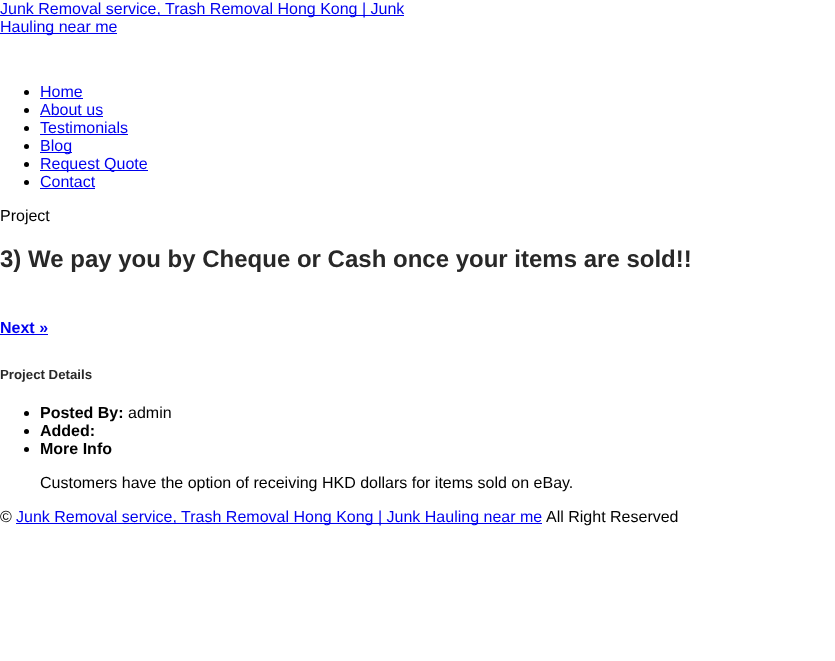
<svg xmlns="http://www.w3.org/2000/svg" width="835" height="661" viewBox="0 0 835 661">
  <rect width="100%" height="100%" fill="rgb(255,255,255)"/>
  <rect x="0" y="15" width="404" height="1" fill="rgb(0,0,238)"/>
  <text x="0" y="14" font-family="Liberation Sans" font-size="16" fill="rgb(0,0,238)">Junk Removal service, Trash Removal Hong Kong | Junk</text>
  <rect x="0" y="33" width="117" height="1" fill="rgb(0,0,238)"/>
  <text x="0" y="32" font-family="Liberation Sans" font-size="16" fill="rgb(0,0,238)">Hauling near me</text>
  <circle cx="26.5" cy="92.5" r="2.5" fill="rgb(0,0,0)"/>
  <text x="40" y="97" font-family="Liberation Sans" font-size="16" fill="rgb(0,0,238)">Home</text>
  <rect x="40" y="98" width="43" height="1" fill="rgb(0,0,238)"/>
  <circle cx="26.5" cy="110.5" r="2.5" fill="rgb(0,0,0)"/>
  <text x="40" y="115" font-family="Liberation Sans" font-size="16" fill="rgb(0,0,238)">About us</text>
  <rect x="40" y="116" width="63" height="1" fill="rgb(0,0,238)"/>
  <circle cx="26.5" cy="128.5" r="2.5" fill="rgb(0,0,0)"/>
  <text x="40" y="133" font-family="Liberation Sans" font-size="16" fill="rgb(0,0,238)">Testimonials</text>
  <rect x="40" y="134" width="88" height="1" fill="rgb(0,0,238)"/>
  <circle cx="26.5" cy="146.5" r="2.5" fill="rgb(0,0,0)"/>
  <rect x="40" y="152" width="32" height="1" fill="rgb(0,0,238)"/>
  <text x="40" y="151" font-family="Liberation Sans" font-size="16" fill="rgb(0,0,238)">Blog</text>
  <circle cx="26.5" cy="164.5" r="2.5" fill="rgb(0,0,0)"/>
  <rect x="40" y="170" width="108" height="1" fill="rgb(0,0,238)"/>
  <text x="40" y="169" font-family="Liberation Sans" font-size="16" fill="rgb(0,0,238)">Request Quote</text>
  <circle cx="26.5" cy="182.5" r="2.5" fill="rgb(0,0,0)"/>
  <text x="40" y="187" font-family="Liberation Sans" font-size="16" fill="rgb(0,0,238)">Contact</text>
  <rect x="40" y="188" width="55" height="1" fill="rgb(0,0,238)"/>
  <text x="0" y="221" font-family="Liberation Sans" font-size="16" fill="rgb(0,0,0)">Project</text>
  <text x="0" y="267" font-family="Liberation Sans" font-size="24" font-weight="bold" fill="rgb(40,40,40)">3) We pay you by Cheque or Cash once your items are sold!!</text>
  <text x="0" y="333" font-family="Liberation Sans" font-size="16" font-weight="bold" fill="rgb(0,0,238)">Next »</text>
  <rect x="0" y="334" width="48" height="1" fill="rgb(0,0,238)"/>
  <text x="0" y="379" font-family="Liberation Sans" font-size="13.25" font-weight="bold" fill="rgb(40,40,40)">Project Details</text>
  <circle cx="26.5" cy="413.5" r="2.5" fill="rgb(0,0,0)"/>
  <text x="40" y="418" font-family="Liberation Sans" font-size="16" font-weight="bold" fill="rgb(0,0,0)">Posted By:</text>
  <text x="128" y="418" font-family="Liberation Sans" font-size="16" fill="rgb(0,0,0)">admin</text>
  <circle cx="26.5" cy="431.5" r="2.5" fill="rgb(0,0,0)"/>
  <text x="40" y="436" font-family="Liberation Sans" font-size="16" font-weight="bold" fill="rgb(0,0,0)">Added:</text>
  <circle cx="26.5" cy="449.5" r="2.5" fill="rgb(0,0,0)"/>
  <text x="40" y="454" font-family="Liberation Sans" font-size="16" font-weight="bold" fill="rgb(0,0,0)">More Info</text>
  <g font-family="Liberation Sans" font-size="16" fill="rgb(0,0,0)">
    <text x="40" y="488">Customers have the option of receiving HKD dollars for items sold on eBay.</text>
    <text x="0" y="522">©</text>
  </g>
  <rect x="16" y="523" width="526" height="1" fill="rgb(0,0,238)"/>
  <text x="16" y="522" font-family="Liberation Sans" font-size="16" fill="rgb(0,0,238)">Junk Removal service, Trash Removal Hong Kong | Junk Hauling near me</text>
  <text x="546" y="522" font-family="Liberation Sans" font-size="16" fill="rgb(0,0,0)">All Right Reserved</text>
</svg>
